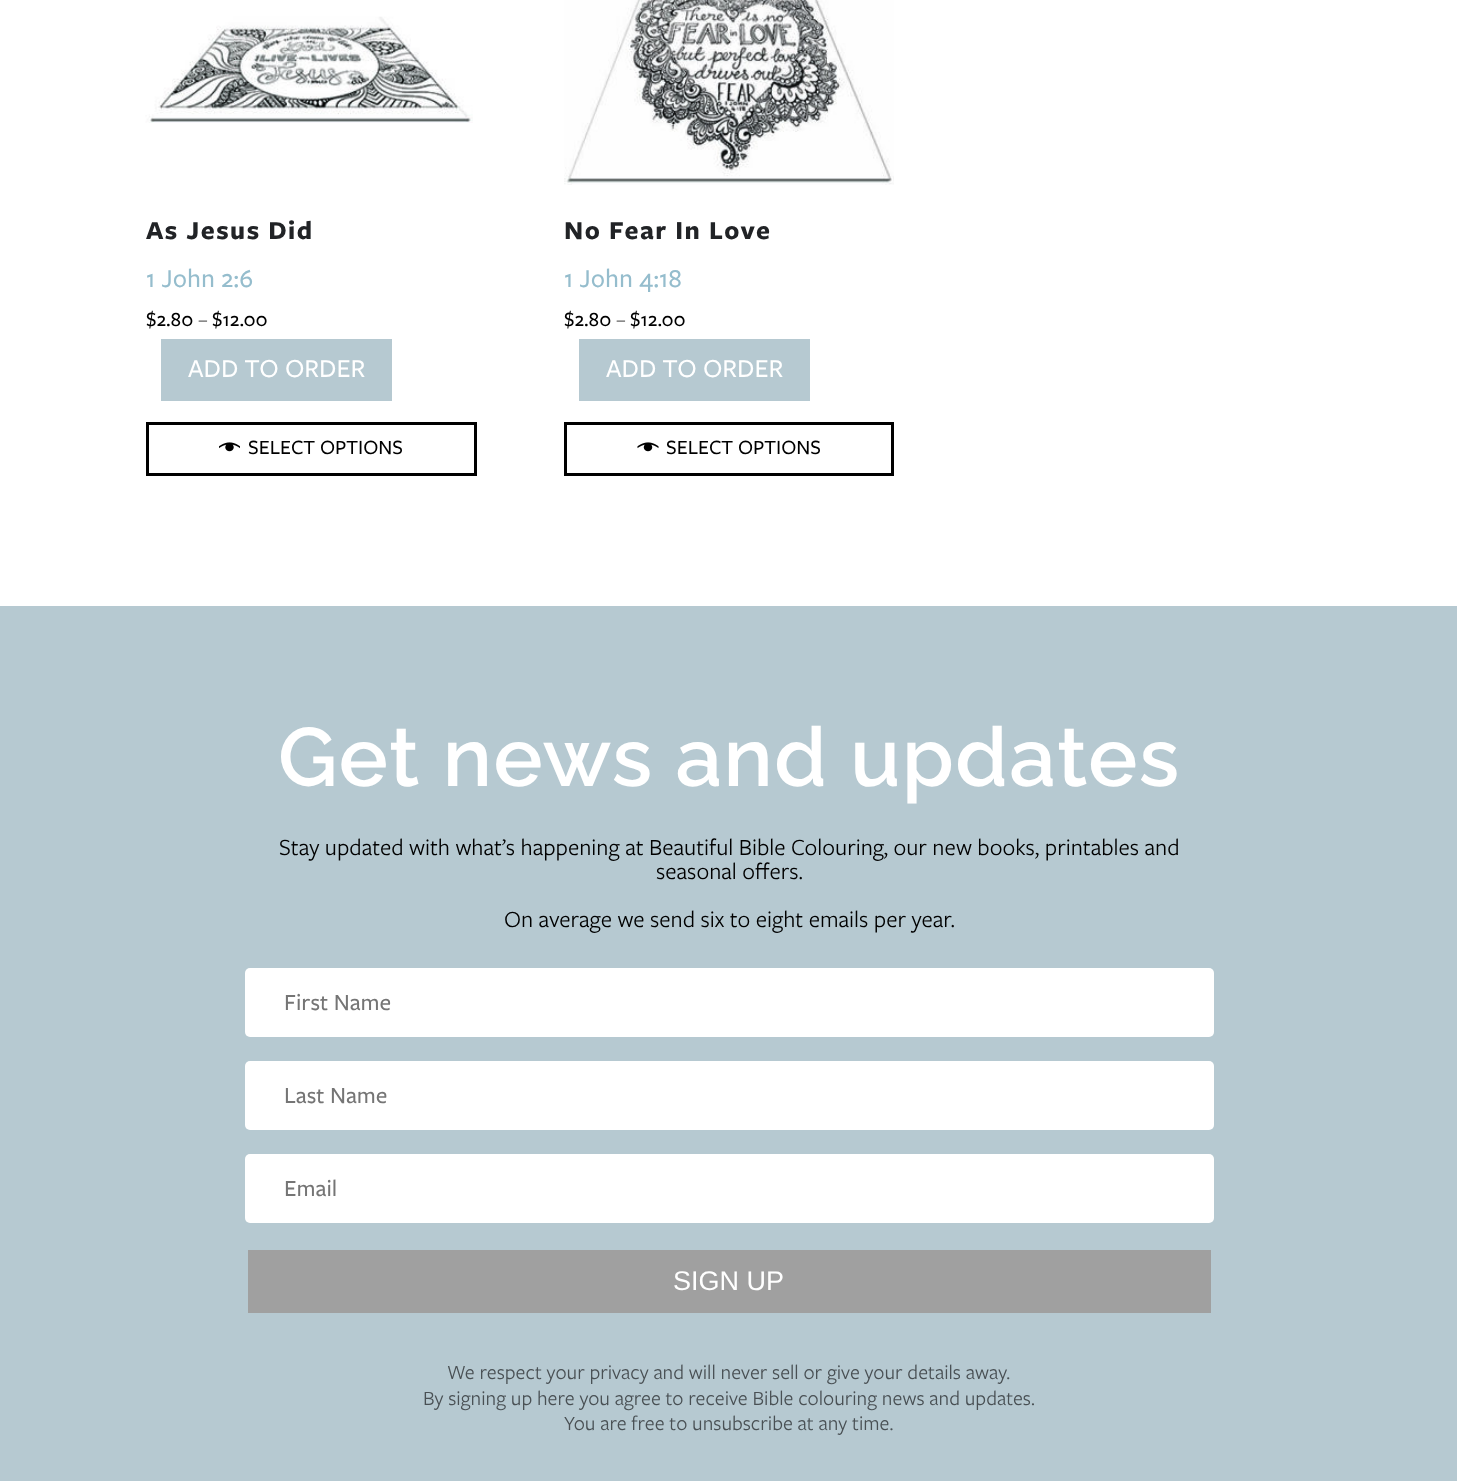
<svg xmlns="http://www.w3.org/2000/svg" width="1457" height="1481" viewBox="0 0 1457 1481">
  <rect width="100%" height="100%" fill="rgb(255,255,255)"/>
  <image x="145" y="16" width="328" height="107" href="pic1.png"/>
  <text x="146" y="239" font-family="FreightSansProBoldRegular" font-size="27" font-weight="bold" letter-spacing="1.5" fill="rgb(33,35,38)">As Jesus Did</text>
  <text x="146" y="287" font-family="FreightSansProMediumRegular" font-size="27" font-weight="500" fill="rgb(149,189,205)">1 John 2:6</text>
  <text x="146" y="326" font-family="FreightSansProMediumRegular" font-size="21" font-weight="500" fill="rgb(0,0,0)">$2.80</text>
  <text x="198" y="326" font-family="FreightSansProMediumRegular" font-size="21" font-weight="500" fill="rgb(102,102,102)">–</text>
  <text x="212" y="326" font-family="FreightSansProMediumRegular" font-size="21" font-weight="500" fill="rgb(0,0,0)">$12.00</text>
  <rect x="161" y="339" width="231" height="62" fill="rgb(182,201,209)"/>
  <text x="188" y="377" font-family="FreightSansProMediumRegular" font-size="27" font-weight="500" fill="rgb(255,255,255)">ADD TO ORDER</text>
  <rect x="147.5" y="423.5" width="328" height="51" fill="none" stroke="rgb(0,0,0)" stroke-width="3"/>
  <image x="219" y="442" width="21" height="10" href="pic2.png"/>
  <text x="248" y="454" font-family="FreightSansProMediumRegular" font-size="21" font-weight="500" fill="rgb(0,0,0)">SELECT OPTIONS</text>
  <image x="564" y="0" width="330" height="185" href="pic3.png"/>
  <text x="564" y="239" font-family="FreightSansProBoldRegular" font-size="27" font-weight="bold" letter-spacing="1.5" fill="rgb(33,35,38)">No Fear In Love</text>
  <text x="564" y="287" font-family="FreightSansProMediumRegular" font-size="27" font-weight="500" fill="rgb(149,189,205)">1 John 4:18</text>
  <text x="564" y="326" font-family="FreightSansProMediumRegular" font-size="21" font-weight="500" fill="rgb(0,0,0)">$2.80</text>
  <text x="616" y="326" font-family="FreightSansProMediumRegular" font-size="21" font-weight="500" fill="rgb(102,102,102)">–</text>
  <text x="630" y="326" font-family="FreightSansProMediumRegular" font-size="21" font-weight="500" fill="rgb(0,0,0)">$12.00</text>
  <rect x="579" y="339" width="231" height="62" fill="rgb(182,201,209)"/>
  <text x="606" y="377" font-family="FreightSansProMediumRegular" font-size="27" font-weight="500" fill="rgb(255,255,255)">ADD TO ORDER</text>
  <rect x="565.5" y="423.5" width="327" height="51" fill="none" stroke="rgb(0,0,0)" stroke-width="3"/>
  <image x="637" y="442" width="22" height="10" href="pic4.png"/>
  <text x="666" y="454" font-family="FreightSansProMediumRegular" font-size="21" font-weight="500" fill="rgb(0,0,0)">SELECT OPTIONS</text>
  <rect x="0" y="606" width="1457" height="875" fill="rgb(182,201,209)"/>
  <text x="278" y="786" font-family="Raleway" font-size="82.5" font-weight="600" letter-spacing="1.5" fill="rgb(255,255,255)">Get news and updates</text>
  <g font-family="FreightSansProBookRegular" font-size="24" fill="rgb(0,0,0)">
    <text x="279" y="855">Stay updated with what’s happening at Beautiful Bible Colouring, our new books, printables and</text>
    <text x="656" y="879">seasonal offers.</text>
    <text x="504" y="927">On average we send six to eight emails per year.</text>
  </g>
  <rect x="245" y="968" width="969" height="69" rx="5" fill="rgb(255,255,255)"/>
  <text x="284" y="1010" font-family="FreightSansProMediumRegular" font-size="24" font-weight="500" fill="rgb(117,117,117)">First Name</text>
  <rect x="245" y="1061" width="969" height="69" rx="5" fill="rgb(255,255,255)"/>
  <text x="284" y="1103" font-family="FreightSansProMediumRegular" font-size="24" font-weight="500" fill="rgb(117,117,117)">Last Name</text>
  <rect x="245" y="1154" width="969" height="69" rx="5" fill="rgb(255,255,255)"/>
  <text x="284" y="1196" font-family="FreightSansProMediumRegular" font-size="24" font-weight="500" fill="rgb(117,117,117)">Email</text>
  <rect x="248" y="1250" width="963" height="63" fill="rgb(160,160,160)"/>
  <text x="673" y="1290" font-family="Liberation Sans" font-size="27" fill="rgb(255,255,255)">SIGN UP</text>
  <g font-family="FreightSansProBookRegular" font-size="21" fill="rgb(73,80,84)">
    <text x="447" y="1379">We respect your privacy and will never sell or give your details away.</text>
    <text x="423" y="1405">By signing up here you agree to receive Bible colouring news and updates.</text>
    <text x="564" y="1430">You are free to unsubscribe at any time.</text>
  </g>
</svg>
